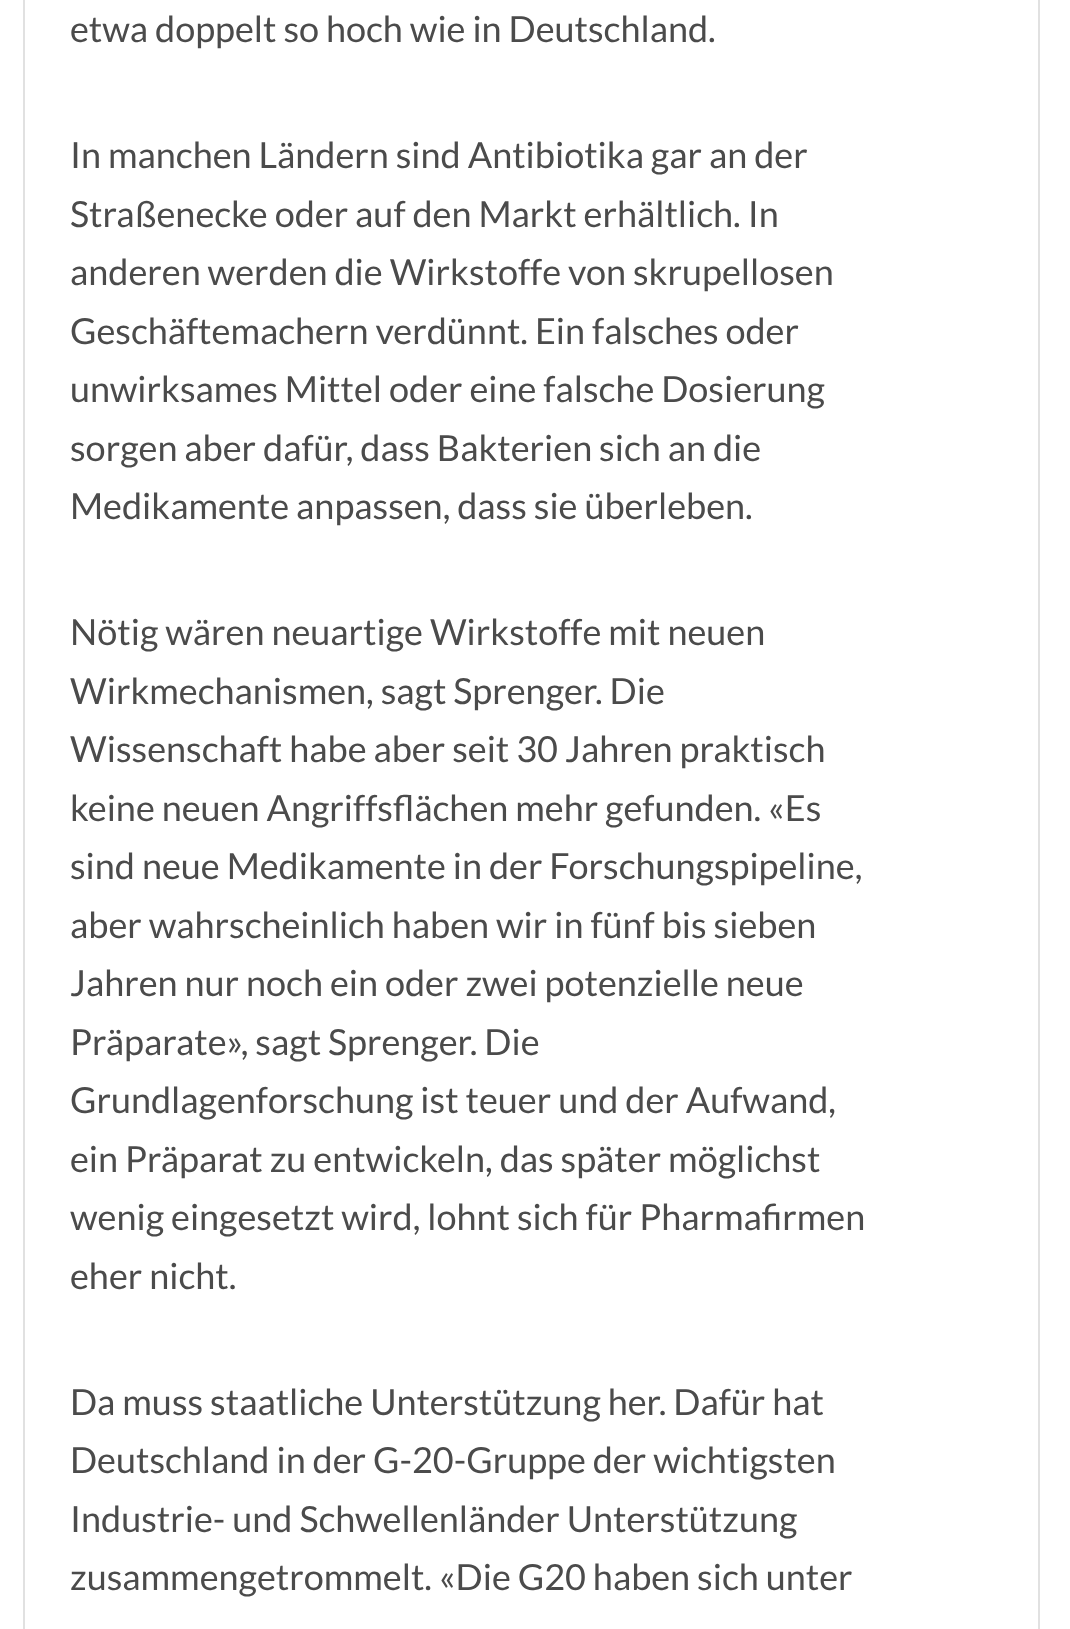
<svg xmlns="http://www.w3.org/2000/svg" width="1070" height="1629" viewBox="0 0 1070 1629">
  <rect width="100%" height="100%" fill="rgb(255,255,255)"/>
  <rect x="24" y="-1" width="1015" height="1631" fill="none" stroke="rgb(225,225,225)" stroke-width="2"/>
  <g font-family="Lato" font-size="36" fill="rgb(75,75,75)">
    <text x="70" y="42">etwa doppelt so hoch wie in Deutschland.</text>
    <text>
      <tspan x="70" y="168">In manchen Ländern sind Antibiotika gar an der</tspan>
      <tspan x="70" y="227">Straßenecke oder auf den Markt erhältlich. In</tspan>
      <tspan x="70" y="285">anderen werden die Wirkstoffe von skrupellosen</tspan>
      <tspan x="70" y="344">Geschäftemachern verdünnt. Ein falsches oder</tspan>
      <tspan x="70" y="402">unwirksames Mittel oder eine falsche Dosierung</tspan>
      <tspan x="70" y="461">sorgen aber dafür, dass Bakterien sich an die</tspan>
      <tspan x="70" y="519">Medikamente anpassen, dass sie überleben.</tspan>
    </text>
    <text>
      <tspan x="70" y="645">Nötig wären neuartige Wirkstoffe mit neuen</tspan>
      <tspan x="70" y="704">Wirkmechanismen, sagt Sprenger. Die</tspan>
      <tspan x="70" y="762">Wissenschaft habe aber seit 30 Jahren praktisch</tspan>
      <tspan x="70" y="821">keine neuen Angriffsflächen mehr gefunden. «Es</tspan>
      <tspan x="70" y="879">sind neue Medikamente in der Forschungspipeline,</tspan>
      <tspan x="70" y="938">aber wahrscheinlich haben wir in fünf bis sieben</tspan>
      <tspan x="70" y="996">Jahren nur noch ein oder zwei potenzielle neue</tspan>
      <tspan x="70" y="1055">Präparate», sagt Sprenger. Die</tspan>
      <tspan x="70" y="1113">Grundlagenforschung ist teuer und der Aufwand,</tspan>
      <tspan x="70" y="1172">ein Präparat zu entwickeln, das später möglichst</tspan>
      <tspan x="70" y="1230">wenig eingesetzt wird, lohnt sich für Pharmafirmen</tspan>
      <tspan x="70" y="1289">eher nicht.</tspan>
    </text>
    <text>
      <tspan x="70" y="1415">Da muss staatliche Unterstützung her. Dafür hat</tspan>
      <tspan x="70" y="1473">Deutschland in der G-20-Gruppe der wichtigsten</tspan>
      <tspan x="70" y="1532">Industrie- und Schwellenländer Unterstützung</tspan>
      <tspan x="70" y="1590">zusammengetrommelt. «Die G20 haben sich unter</tspan>
    </text>
  </g>
</svg>
